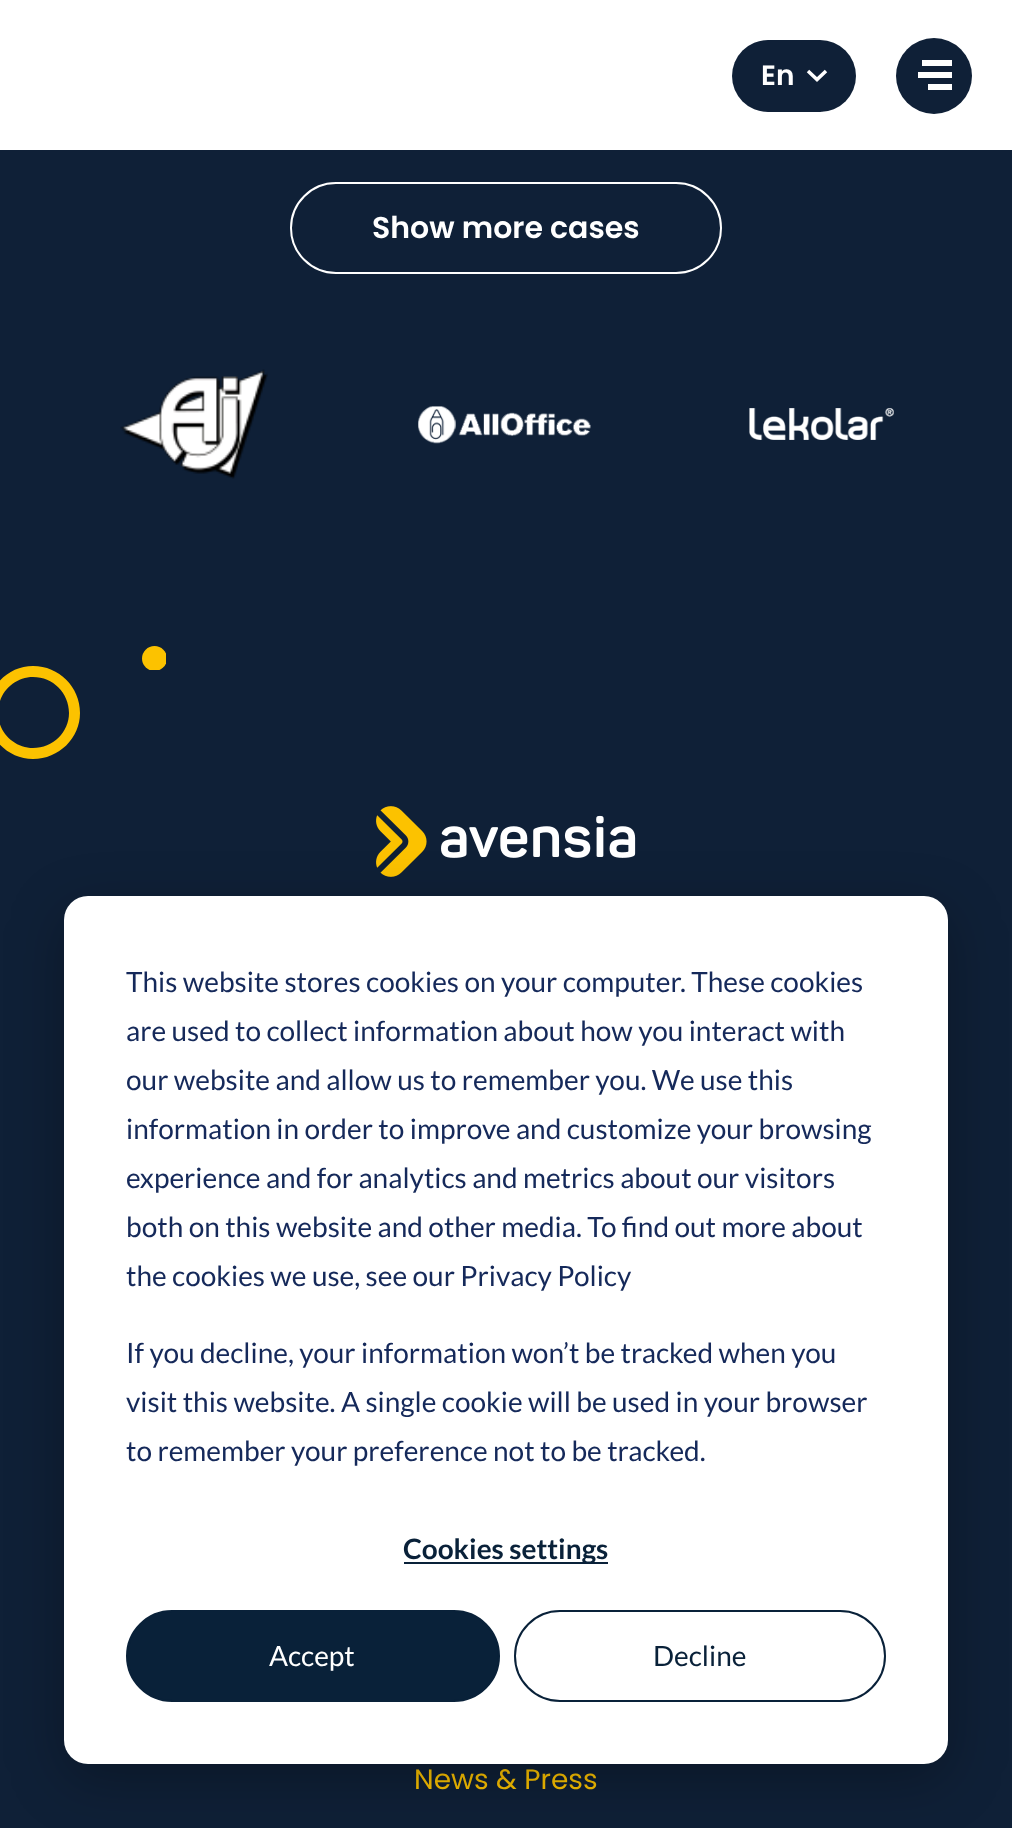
<svg xmlns="http://www.w3.org/2000/svg" width="1012" height="1828" viewBox="0 0 1012 1828">
  <defs>
    <clipPath id="clip1"><rect x="142" y="646" width="24" height="24"/></clipPath>
  </defs>
  <rect width="100%" height="100%" fill="rgb(15,32,55)"/>
  <rect x="0" y="0" width="1012" height="150" fill="rgb(255,255,255)"/>
  <rect x="732" y="40" width="124" height="72" rx="36" fill="rgb(15,32,55)"/>
  <text x="761" y="85" font-family="Poppins" font-size="28" font-weight="600" fill="rgb(255,255,255)">En</text>
  <path d="M808 71L817 79.5L826 71" fill="none" stroke="rgb(255,255,255)" stroke-width="3.5"/>
  <circle cx="934" cy="76" r="38" fill="rgb(15,32,55)"/>
  <rect x="918" y="72" width="34" height="6" fill="rgb(255,255,255)"/>
  <rect x="922" y="60" width="30" height="6" fill="rgb(255,255,255)"/>
  <rect x="928" y="84" width="24" height="6" fill="rgb(255,255,255)"/>
  <rect x="291" y="183" width="430" height="90" rx="45" fill="none" stroke="rgb(255,255,255)" stroke-width="2"/>
  <text x="372" y="238" font-family="Poppins" font-size="30" font-weight="600" fill="rgb(255,255,255)">Show more cases</text>
  <image x="120" y="369" width="148" height="110" href="pic1.png"/>
  <image x="418" y="406" width="173" height="38" href="pic2.png"/>
  <image x="749" y="408" width="145" height="32" href="pic3.png"/>
  <g clip-path="url(#clip1)">
    <circle cx="154.5" cy="658.5" r="12.5" fill="rgb(252,194,0)"/>
  </g>
  <path d="M33 748C53 748 69 732 69 713C69 693 53 677 33 677C14 677-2 693-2 713C-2 732 14 748 33 748ZM33 759C59 759 80 738 80 713C80 687 59 666 33 666C8 666-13 687-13 713C-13 738 8 759 33 759Z" fill="rgb(252,194,0)" fill-rule="evenodd"/>
  <image x="376" y="806" width="260" height="71" href="pic4.png"/>
  <text x="414" y="1789" font-family="Poppins" font-size="28" fill="rgb(252,194,0)">News &amp; Press</text>
  <rect x="64" y="912" width="884" height="868" rx="24" fill="rgba(0,0,0,0.28)" filter="blur(28px)"/>
  <rect x="64" y="896" width="884" height="868" rx="24" fill="rgb(255,255,255)"/>
  <g font-family="Lato" font-size="28" fill="rgb(21,41,90)">
    <text>
      <tspan x="126" y="992">This website stores cookies on your computer. These cookies</tspan>
      <tspan x="126" y="1041">are used to collect information about how you interact with</tspan>
      <tspan x="126" y="1090">our website and allow us to remember you. We use this</tspan>
      <tspan x="126" y="1139">information in order to improve and customize your browsing</tspan>
      <tspan x="126" y="1188">experience and for analytics and metrics about our visitors</tspan>
      <tspan x="126" y="1237">both on this website and other media. To find out more about</tspan>
      <tspan x="126" y="1286">the cookies we use, see our Privacy Policy</tspan>
    </text>
    <text>
      <tspan x="126" y="1363">If you decline, your information won’t be tracked when you</tspan>
      <tspan x="126" y="1412">visit this website. A single cookie will be used in your browser</tspan>
      <tspan x="126" y="1461">to remember your preference not to be tracked.</tspan>
    </text>
  </g>
  <rect x="404" y="1562" width="204" height="2" fill="rgb(9,33,57)"/>
  <text x="403" y="1559" font-family="Lato" font-size="28" font-weight="bold" fill="rgb(9,33,57)">Cookies settings</text>
  <rect x="127" y="1611" width="372" height="90" rx="45" fill="rgb(9,33,57)" stroke="rgb(9,33,57)" stroke-width="2"/>
  <text x="269" y="1666" font-family="Lato" font-size="28" fill="rgb(255,255,255)">Accept</text>
  <rect x="515" y="1611" width="370" height="90" rx="45" fill="none" stroke="rgb(9,33,57)" stroke-width="2"/>
  <text x="653" y="1666" font-family="Lato" font-size="28" fill="rgb(9,33,57)">Decline</text>
</svg>
